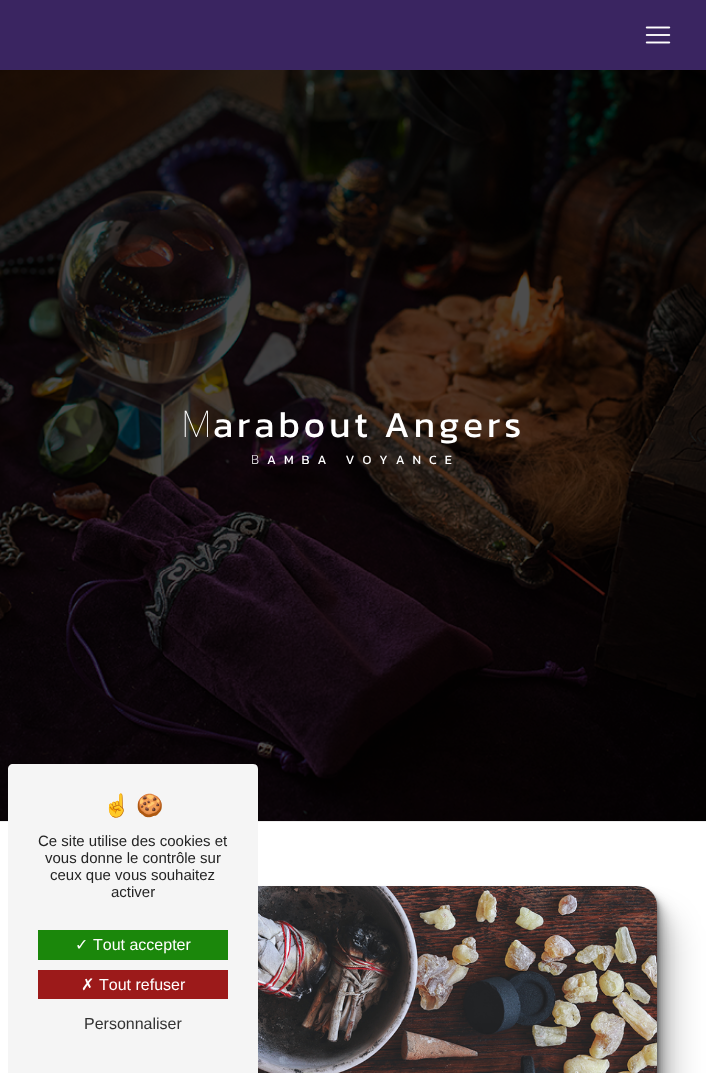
<svg xmlns="http://www.w3.org/2000/svg" width="706" height="1073" viewBox="0 0 706 1073">
  <style>*{font-kerning:none!important;font-variant-ligatures:none!important}</style>
  <rect width="100%" height="100%" fill="rgb(255,255,255)"/>
  <rect x="0" y="0" width="706" height="70" fill="rgb(58,37,97)"/>
  <image x="645" y="26" width="26" height="18" href="pic1.png"/>
  <image x="0" y="70" width="706" height="751" href="pic2.png"/>
  <text x="181" y="437" font-family="Noto Sans" font-size="36.75" font-weight="100" letter-spacing="4" fill="rgb(255,255,255)">M</text>
  <text x="213" y="437" font-family="Kanit" font-size="36.75" letter-spacing="4" fill="rgb(255,255,255)">arabout Angers</text>
  <text x="251" y="464" font-family="Noto Sans" font-size="12.75" font-weight="300" letter-spacing="8" fill="rgb(255,255,255)">B</text>
  <text x="267" y="464" font-family="Kanit" font-size="12.75" letter-spacing="8" fill="rgb(255,255,255)">AMBA VOYANCE</text>
  <rect x="0" y="821" width="706" height="1" fill="rgb(237,237,237)"/>
  <rect x="65" y="918" width="608" height="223" rx="20" fill="rgba(0,0,0,0.2)" filter="blur(16px)"/>
  <rect x="57" y="902" width="608" height="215" rx="20" fill="rgba(0,0,0,0.2)" filter="blur(8px)"/>
  <rect x="53" y="894" width="608" height="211" rx="20" fill="rgba(0,0,0,0.2)" filter="blur(4px)"/>
  <rect x="51" y="890" width="608" height="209" rx="20" fill="rgba(0,0,0,0.2)" filter="blur(2px)"/>
  <rect x="50" y="888" width="608" height="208" rx="20" fill="rgba(0,0,0,0.2)" filter="blur(1px)"/>
  <image x="258" y="886" width="399" height="187" href="pic3.png"/>
  <path d="M13 764H253C256 764 258 766 258 769V1073H8V769C8 766 10 764 13 764Z" fill="rgb(245,245,245)"/>
  <g font-family="Noto Color Emoji" font-size="22" fill="rgb(36,36,36)">
    <text x="103" y="813">☝</text>
    <text x="136" y="813">🍪</text>
  </g>
  <g font-family="Liberation Sans" font-size="15" fill="rgb(36,36,36)">
    <text x="38" y="846">Ce site utilise des cookies et</text>
    <text x="45" y="863">vous donne le contrôle sur</text>
    <text x="50" y="880">ceux que vous souhaitez</text>
    <text x="111" y="897">activer</text>
  </g>
  <rect x="38" y="930" width="190" height="30" fill="rgb(27,135,11)"/>
  <text x="75" y="950" font-family="DejaVu Sans" font-size="16" fill="rgb(255,255,255)">✓</text>
  <text x="93" y="950" font-family="Liberation Sans" font-size="16" fill="rgb(255,255,255)">Tout accepter</text>
  <rect x="38" y="970" width="190" height="29" fill="rgb(156,26,26)"/>
  <text x="81" y="990" font-family="DejaVu Sans" font-size="16" fill="rgb(255,255,255)">✗</text>
  <text x="99" y="990" font-family="Liberation Sans" font-size="16" fill="rgb(255,255,255)">Tout refuser</text>
  <text x="84" y="1029" font-family="Liberation Sans" font-size="16" fill="rgb(51,51,51)">Personnaliser</text>
</svg>
